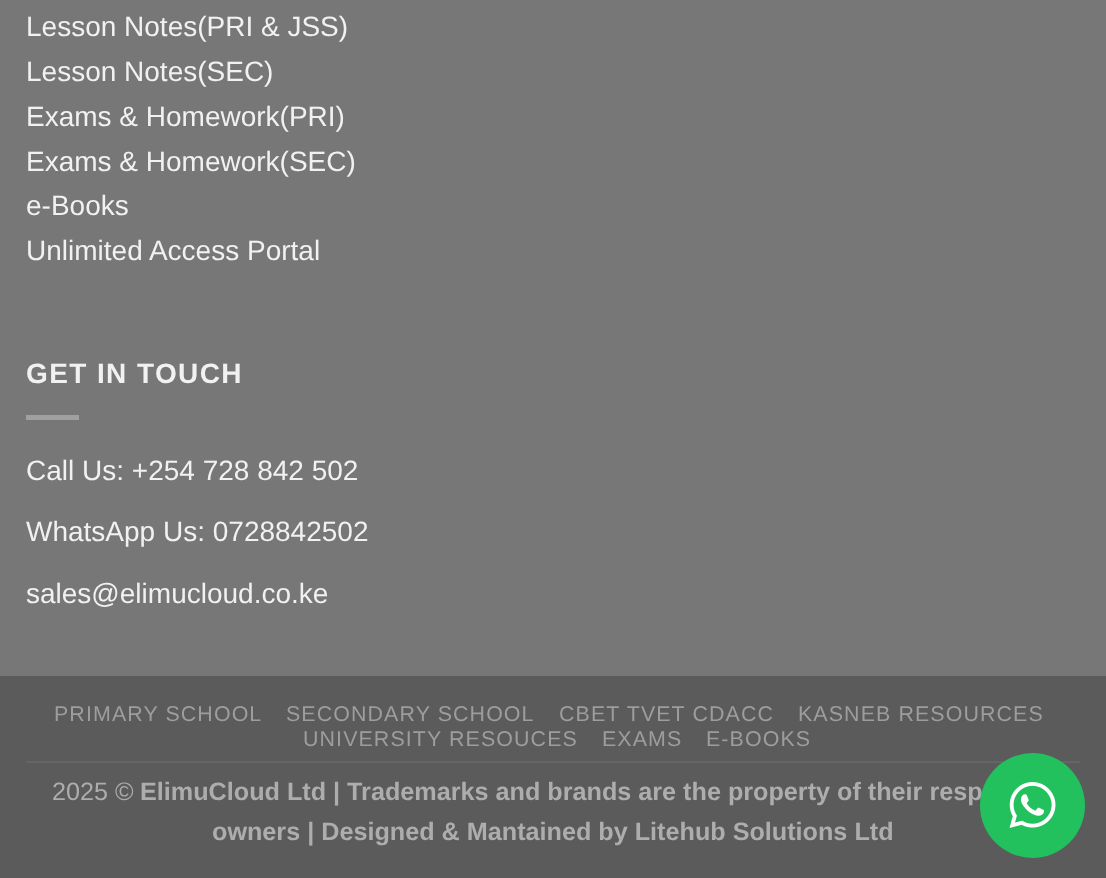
<svg xmlns="http://www.w3.org/2000/svg" width="1106" height="878" viewBox="0 0 1106 878">
  <rect width="100%" height="100%" fill="rgb(119,119,119)"/>
  <g font-family="Liberation Sans" font-size="28" fill="rgb(241,241,241)">
    <text>
      <tspan x="26" y="36">Lesson Notes(PRI &amp; JSS)</tspan>
      <tspan x="26" y="81">Lesson Notes(SEC)</tspan>
      <tspan x="26" y="126">Exams &amp; Homework(PRI)</tspan>
      <tspan x="26" y="171">Exams &amp; Homework(SEC)</tspan>
      <tspan x="26" y="215">e-Books</tspan>
      <tspan x="26" y="260">Unlimited Access Portal</tspan>
    </text>
  </g>
  <text x="26" y="383" font-family="Liberation Sans" font-size="28" font-weight="bold" letter-spacing="1.4" fill="rgb(241,241,241)">GET IN TOUCH</text>
  <rect x="26" y="415" width="53" height="5" fill="rgb(160,160,160)"/>
  <g font-family="Liberation Sans" font-size="28" fill="rgb(241,241,241)">
    <text x="26" y="480">Call Us: +254 728 842 502</text>
    <text x="26" y="541">WhatsApp Us: 0728842502</text>
    <text x="26" y="603">sales@elimucloud.co.ke</text>
  </g>
  <rect x="0" y="676" width="1106" height="202" fill="rgb(91,91,91)"/>
  <rect x="26" y="761" width="1054" height="2" fill="rgb(101,101,101)"/>
  <g font-family="Liberation Sans" font-size="21.4" letter-spacing="1.1" fill="rgb(157,157,157)">
    <text x="54" y="721">PRIMARY SCHOOL</text>
    <text x="286" y="721">SECONDARY SCHOOL</text>
    <text x="559" y="721">CBET TVET CDACC</text>
    <text x="798" y="721">KASNEB RESOURCES</text>
    <text x="303" y="746">UNIVERSITY RESOUCES</text>
    <text x="602" y="746">EXAMS</text>
    <text x="706" y="746">E-BOOKS</text>
  </g>
  <text x="52" y="800" font-family="Liberation Sans" font-size="25.2" fill="rgb(173,173,173)">2025 ©</text>
  <g font-family="Liberation Sans" font-size="25.2" font-weight="bold" fill="rgb(173,173,173)">
    <text x="140" y="800">ElimuCloud Ltd | Trademarks and brands are the property of their resp</text>
    <text x="212" y="840">owners | Designed &amp; Mantained by Litehub Solutions Ltd</text>
  </g>
  <circle cx="1032.5" cy="805.5" r="52.5" fill="rgb(34,193,94)"/>
  <image x="1009" y="782" width="47" height="46" href="pic1.png"/>
</svg>
